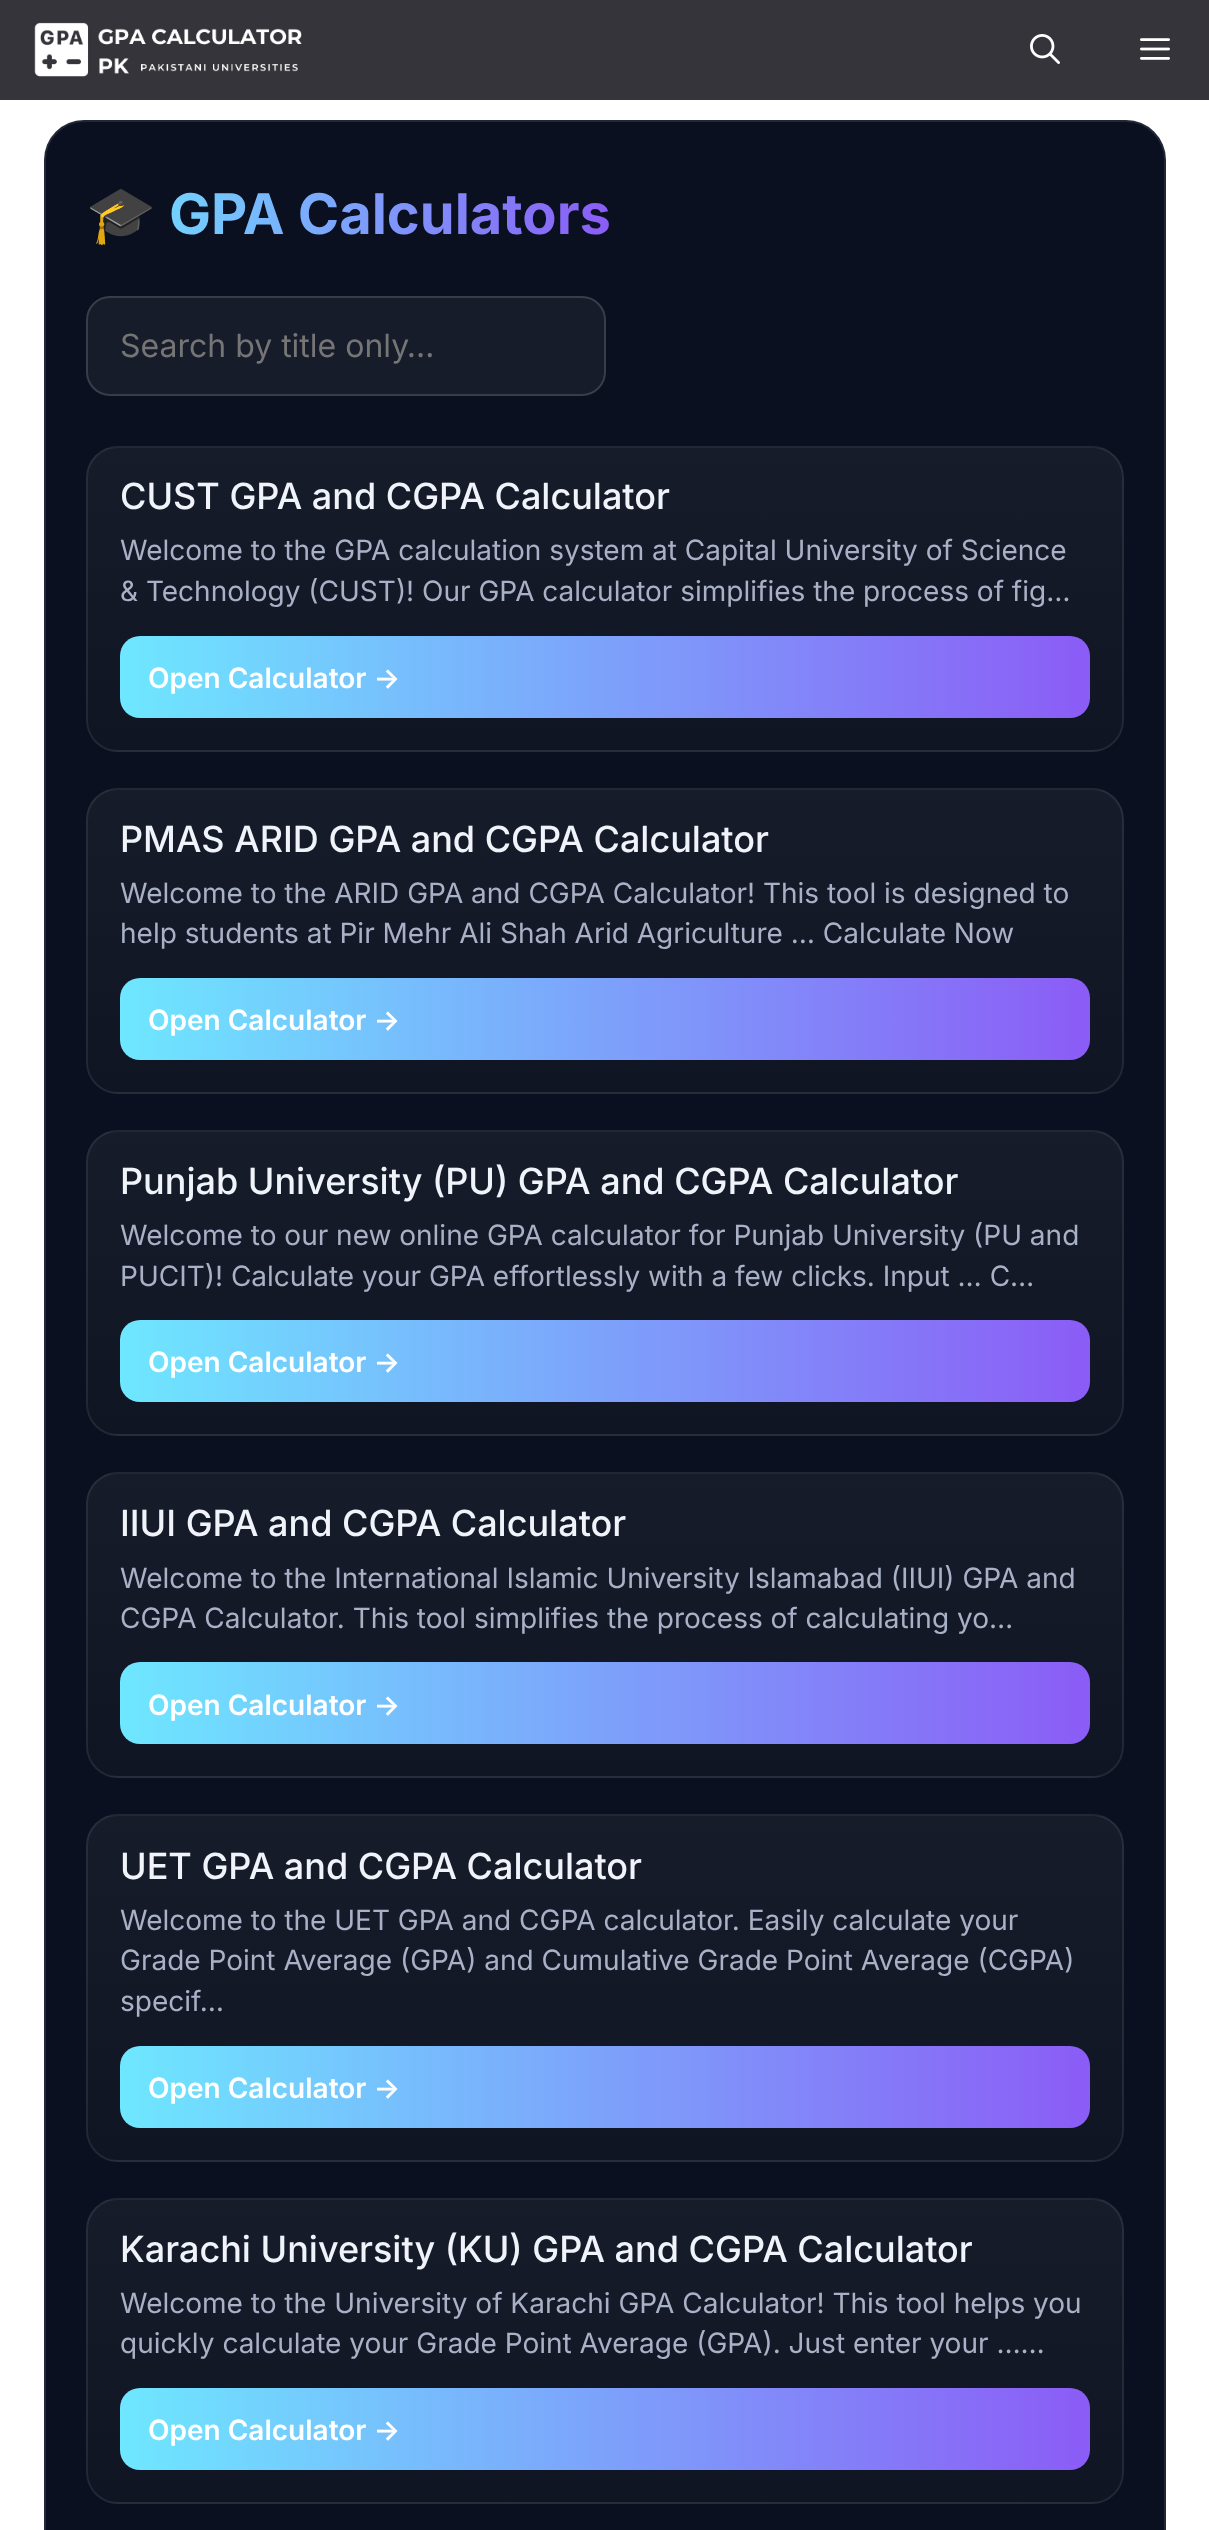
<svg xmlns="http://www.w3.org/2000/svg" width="1209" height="2530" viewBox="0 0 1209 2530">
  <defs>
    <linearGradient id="g1" gradientUnits="userSpaceOnUse" x1="86" y1="216" x2="611" y2="216"><stop offset="0" stop-color="rgb(110,231,255)"/><stop offset="1" stop-color="rgb(139,92,246)"/></linearGradient>
    <clipPath id="clip1"><rect x="86" y="446" width="1038" height="306" rx="32"/></clipPath>
    <linearGradient id="g2" gradientUnits="userSpaceOnUse" x1="605" y1="146" x2="605" y2="448"><stop offset="0" stop-color="rgb(23,28,43)"/><stop offset="1" stop-color="rgb(16,21,36)"/></linearGradient>
    <linearGradient id="g3" gradientUnits="userSpaceOnUse" x1="605" y1="448" x2="605" y2="750"><stop offset="0" stop-color="rgb(23,28,43)"/><stop offset="1" stop-color="rgb(16,21,36)"/></linearGradient>
    <linearGradient id="g4" gradientUnits="userSpaceOnUse" x1="605" y1="750" x2="605" y2="1052"><stop offset="0" stop-color="rgb(23,28,43)"/><stop offset="1" stop-color="rgb(16,21,36)"/></linearGradient>
    <linearGradient id="g5" gradientUnits="userSpaceOnUse" x1="120" y1="677" x2="1090" y2="677"><stop offset="0" stop-color="rgb(110,231,255)"/><stop offset="1" stop-color="rgb(139,92,246)"/></linearGradient>
    <clipPath id="clip2"><rect x="86" y="788" width="1038" height="306" rx="32"/></clipPath>
    <linearGradient id="g6" gradientUnits="userSpaceOnUse" x1="605" y1="488" x2="605" y2="790"><stop offset="0" stop-color="rgb(23,28,43)"/><stop offset="1" stop-color="rgb(16,21,36)"/></linearGradient>
    <linearGradient id="g7" gradientUnits="userSpaceOnUse" x1="605" y1="790" x2="605" y2="1092"><stop offset="0" stop-color="rgb(23,28,43)"/><stop offset="1" stop-color="rgb(16,21,36)"/></linearGradient>
    <linearGradient id="g8" gradientUnits="userSpaceOnUse" x1="605" y1="1092" x2="605" y2="1394"><stop offset="0" stop-color="rgb(23,28,43)"/><stop offset="1" stop-color="rgb(16,21,36)"/></linearGradient>
    <linearGradient id="g9" gradientUnits="userSpaceOnUse" x1="120" y1="1019" x2="1090" y2="1019"><stop offset="0" stop-color="rgb(110,231,255)"/><stop offset="1" stop-color="rgb(139,92,246)"/></linearGradient>
    <clipPath id="clip3"><rect x="86" y="1130" width="1038" height="306" rx="32"/></clipPath>
    <linearGradient id="g10" gradientUnits="userSpaceOnUse" x1="605" y1="830" x2="605" y2="1132"><stop offset="0" stop-color="rgb(23,28,43)"/><stop offset="1" stop-color="rgb(16,21,36)"/></linearGradient>
    <linearGradient id="g11" gradientUnits="userSpaceOnUse" x1="605" y1="1132" x2="605" y2="1434"><stop offset="0" stop-color="rgb(23,28,43)"/><stop offset="1" stop-color="rgb(16,21,36)"/></linearGradient>
    <linearGradient id="g12" gradientUnits="userSpaceOnUse" x1="605" y1="1434" x2="605" y2="1736"><stop offset="0" stop-color="rgb(23,28,43)"/><stop offset="1" stop-color="rgb(16,21,36)"/></linearGradient>
    <linearGradient id="g13" gradientUnits="userSpaceOnUse" x1="120" y1="1361" x2="1090" y2="1361"><stop offset="0" stop-color="rgb(110,231,255)"/><stop offset="1" stop-color="rgb(139,92,246)"/></linearGradient>
    <clipPath id="clip4"><rect x="86" y="1472" width="1038" height="306" rx="32"/></clipPath>
    <linearGradient id="g14" gradientUnits="userSpaceOnUse" x1="605" y1="1172" x2="605" y2="1474"><stop offset="0" stop-color="rgb(23,28,43)"/><stop offset="1" stop-color="rgb(16,21,36)"/></linearGradient>
    <linearGradient id="g15" gradientUnits="userSpaceOnUse" x1="605" y1="1474" x2="605" y2="1776"><stop offset="0" stop-color="rgb(23,28,43)"/><stop offset="1" stop-color="rgb(16,21,36)"/></linearGradient>
    <linearGradient id="g16" gradientUnits="userSpaceOnUse" x1="605" y1="1776" x2="605" y2="2078"><stop offset="0" stop-color="rgb(23,28,43)"/><stop offset="1" stop-color="rgb(16,21,36)"/></linearGradient>
    <linearGradient id="g17" gradientUnits="userSpaceOnUse" x1="120" y1="1703" x2="1090" y2="1703"><stop offset="0" stop-color="rgb(110,231,255)"/><stop offset="1" stop-color="rgb(139,92,246)"/></linearGradient>
    <clipPath id="clip5"><rect x="86" y="1814" width="1038" height="348" rx="32"/></clipPath>
    <linearGradient id="g18" gradientUnits="userSpaceOnUse" x1="605" y1="1472" x2="605" y2="1816"><stop offset="0" stop-color="rgb(23,28,43)"/><stop offset="1" stop-color="rgb(16,21,36)"/></linearGradient>
    <linearGradient id="g19" gradientUnits="userSpaceOnUse" x1="605" y1="1816" x2="605" y2="2160"><stop offset="0" stop-color="rgb(23,28,43)"/><stop offset="1" stop-color="rgb(16,21,36)"/></linearGradient>
    <linearGradient id="g20" gradientUnits="userSpaceOnUse" x1="605" y1="2160" x2="605" y2="2504"><stop offset="0" stop-color="rgb(23,28,43)"/><stop offset="1" stop-color="rgb(16,21,36)"/></linearGradient>
    <linearGradient id="g21" gradientUnits="userSpaceOnUse" x1="120" y1="2087" x2="1090" y2="2087"><stop offset="0" stop-color="rgb(110,231,255)"/><stop offset="1" stop-color="rgb(139,92,246)"/></linearGradient>
    <clipPath id="clip6"><rect x="86" y="2198" width="1038" height="306" rx="32"/></clipPath>
    <linearGradient id="g22" gradientUnits="userSpaceOnUse" x1="605" y1="1898" x2="605" y2="2200"><stop offset="0" stop-color="rgb(23,28,43)"/><stop offset="1" stop-color="rgb(16,21,36)"/></linearGradient>
    <linearGradient id="g23" gradientUnits="userSpaceOnUse" x1="605" y1="2200" x2="605" y2="2502"><stop offset="0" stop-color="rgb(23,28,43)"/><stop offset="1" stop-color="rgb(16,21,36)"/></linearGradient>
    <linearGradient id="g24" gradientUnits="userSpaceOnUse" x1="605" y1="2502" x2="605" y2="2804"><stop offset="0" stop-color="rgb(23,28,43)"/><stop offset="1" stop-color="rgb(16,21,36)"/></linearGradient>
    <linearGradient id="g25" gradientUnits="userSpaceOnUse" x1="120" y1="2429" x2="1090" y2="2429"><stop offset="0" stop-color="rgb(110,231,255)"/><stop offset="1" stop-color="rgb(139,92,246)"/></linearGradient>
  </defs>
  <rect width="100%" height="100%" fill="rgb(255,255,255)"/>
  <rect x="0" y="0" width="1209" height="100" fill="rgb(53,52,58)"/>
  <image x="34" y="22" width="268" height="55" href="pic1.png"/>
  <image x="1030" y="34" width="30" height="30" href="pic2.png"/>
  <image x="1140" y="38" width="30" height="22" href="pic3.png"/>
  <rect x="44" y="120" width="1122" height="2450" rx="40" fill="rgb(11,16,32)"/>
  <rect x="45" y="121" width="1120" height="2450" rx="39" fill="none" stroke="rgba(255,255,255,0.1)" stroke-width="2"/>
  <text x="86" y="234" font-family="Noto Color Emoji" font-size="56" font-weight="bold" fill="url(#g1)">🎓</text>
  <text x="169" y="234" font-family="Inter" font-size="56" font-weight="bold" fill="url(#g1)">GPA Calculators</text>
  <rect x="86" y="296" width="520" height="100" rx="24" fill="rgb(23,28,43)"/>
  <rect x="87" y="297" width="518" height="98" rx="23" fill="none" stroke="rgba(255,255,255,0.15)" stroke-width="2"/>
  <text x="120" y="357" font-family="Inter" font-size="32" fill="rgb(117,117,117)">Search by title only…</text>
  <g clip-path="url(#clip1)">
    <rect x="107" y="446" width="996" height="2" fill="url(#g2)"/>
    <rect x="86" y="448" width="1038" height="302" fill="url(#g3)"/>
    <rect x="107" y="750" width="996" height="2" fill="url(#g4)"/>
  </g>
  <rect x="87" y="447" width="1036" height="304" rx="31" fill="none" stroke="rgba(255,255,255,0.08)" stroke-width="2"/>
  <text x="120" y="509" font-family="Inter" font-size="36" font-weight="500" fill="rgb(240,244,250)">CUST GPA and CGPA Calculator</text>
  <g font-family="Inter" font-size="28" fill="rgb(169,177,198)">
    <text>
      <tspan x="120" y="560">Welcome to the GPA calculation system at Capital University of Science</tspan>
      <tspan x="120" y="601">&amp; Technology (CUST)! Our GPA calculator simplifies the process of fig…</tspan>
    </text>
  </g>
  <rect x="120" y="636" width="970" height="82" rx="20" fill="url(#g5)"/>
  <text x="148" y="688" font-family="Inter" font-size="28" font-weight="600" fill="rgb(255,255,255)">Open Calculator →</text>
  <g clip-path="url(#clip2)">
    <rect x="107" y="788" width="996" height="2" fill="url(#g6)"/>
    <rect x="86" y="790" width="1038" height="302" fill="url(#g7)"/>
    <rect x="107" y="1092" width="996" height="2" fill="url(#g8)"/>
  </g>
  <rect x="87" y="789" width="1036" height="304" rx="31" fill="none" stroke="rgba(255,255,255,0.08)" stroke-width="2"/>
  <text x="120" y="852" font-family="Inter" font-size="36" font-weight="500" fill="rgb(240,244,250)">PMAS ARID GPA and CGPA Calculator</text>
  <g font-family="Inter" font-size="28" fill="rgb(169,177,198)">
    <text>
      <tspan x="120" y="903">Welcome to the ARID GPA and CGPA Calculator! This tool is designed to</tspan>
      <tspan x="120" y="943">help students at Pir Mehr Ali Shah Arid Agriculture … Calculate Now</tspan>
    </text>
  </g>
  <rect x="120" y="978" width="970" height="82" rx="20" fill="url(#g9)"/>
  <text x="148" y="1030" font-family="Inter" font-size="28" font-weight="600" fill="rgb(255,255,255)">Open Calculator →</text>
  <g clip-path="url(#clip3)">
    <rect x="107" y="1130" width="996" height="2" fill="url(#g10)"/>
    <rect x="86" y="1132" width="1038" height="302" fill="url(#g11)"/>
    <rect x="107" y="1434" width="996" height="2" fill="url(#g12)"/>
  </g>
  <rect x="87" y="1131" width="1036" height="304" rx="31" fill="none" stroke="rgba(255,255,255,0.08)" stroke-width="2"/>
  <text x="120" y="1194" font-family="Inter" font-size="36" font-weight="500" fill="rgb(240,244,250)">Punjab University (PU) GPA and CGPA Calculator</text>
  <g font-family="Inter" font-size="28" fill="rgb(169,177,198)">
    <text>
      <tspan x="120" y="1245">Welcome to our new online GPA calculator for Punjab University (PU and</tspan>
      <tspan x="120" y="1286">PUCIT)! Calculate your GPA effortlessly with a few clicks. Input … C…</tspan>
    </text>
  </g>
  <rect x="120" y="1320" width="970" height="82" rx="20" fill="url(#g13)"/>
  <text x="148" y="1372" font-family="Inter" font-size="28" font-weight="600" fill="rgb(255,255,255)">Open Calculator →</text>
  <g clip-path="url(#clip4)">
    <rect x="107" y="1472" width="996" height="2" fill="url(#g14)"/>
    <rect x="86" y="1474" width="1038" height="302" fill="url(#g15)"/>
    <rect x="107" y="1776" width="996" height="2" fill="url(#g16)"/>
  </g>
  <rect x="87" y="1473" width="1036" height="304" rx="31" fill="none" stroke="rgba(255,255,255,0.08)" stroke-width="2"/>
  <text x="120" y="1536" font-family="Inter" font-size="36" font-weight="500" fill="rgb(240,244,250)">IIUI GPA and CGPA Calculator</text>
  <g font-family="Inter" font-size="28" fill="rgb(169,177,198)">
    <text>
      <tspan x="120" y="1588">Welcome to the International Islamic University Islamabad (IIUI) GPA and</tspan>
      <tspan x="120" y="1628">CGPA Calculator. This tool simplifies the process of calculating yo…</tspan>
    </text>
  </g>
  <rect x="120" y="1662" width="970" height="82" rx="20" fill="url(#g17)"/>
  <text x="148" y="1715" font-family="Inter" font-size="28" font-weight="600" fill="rgb(255,255,255)">Open Calculator →</text>
  <g clip-path="url(#clip5)">
    <rect x="107" y="1814" width="996" height="2" fill="url(#g18)"/>
    <rect x="86" y="1816" width="1038" height="344" fill="url(#g19)"/>
    <rect x="107" y="2160" width="996" height="2" fill="url(#g20)"/>
  </g>
  <rect x="87" y="1815" width="1036" height="346" rx="31" fill="none" stroke="rgba(255,255,255,0.08)" stroke-width="2"/>
  <text x="120" y="1879" font-family="Inter" font-size="36" font-weight="500" fill="rgb(240,244,250)">UET GPA and CGPA Calculator</text>
  <g font-family="Inter" font-size="28" fill="rgb(169,177,198)">
    <text>
      <tspan x="120" y="1930">Welcome to the UET GPA and CGPA calculator. Easily calculate your</tspan>
      <tspan x="120" y="1970">Grade Point Average (GPA) and Cumulative Grade Point Average (CGPA)</tspan>
      <tspan x="120" y="2011">specif…</tspan>
    </text>
  </g>
  <rect x="120" y="2046" width="970" height="82" rx="20" fill="url(#g21)"/>
  <text x="148" y="2098" font-family="Inter" font-size="28" font-weight="600" fill="rgb(255,255,255)">Open Calculator →</text>
  <g clip-path="url(#clip6)">
    <rect x="107" y="2198" width="996" height="2" fill="url(#g22)"/>
    <rect x="86" y="2200" width="1038" height="302" fill="url(#g23)"/>
    <rect x="107" y="2502" width="996" height="2" fill="url(#g24)"/>
  </g>
  <rect x="87" y="2199" width="1036" height="304" rx="31" fill="none" stroke="rgba(255,255,255,0.08)" stroke-width="2"/>
  <text x="120" y="2262" font-family="Inter" font-size="36" font-weight="500" fill="rgb(240,244,250)">Karachi University (KU) GPA and CGPA Calculator</text>
  <g font-family="Inter" font-size="28" fill="rgb(169,177,198)">
    <text>
      <tspan x="120" y="2313">Welcome to the University of Karachi GPA Calculator! This tool helps you</tspan>
      <tspan x="120" y="2353">quickly calculate your Grade Point Average (GPA). Just enter your ……</tspan>
    </text>
  </g>
  <rect x="120" y="2388" width="970" height="82" rx="20" fill="url(#g25)"/>
  <text x="148" y="2440" font-family="Inter" font-size="28" font-weight="600" fill="rgb(255,255,255)">Open Calculator →</text>
</svg>
